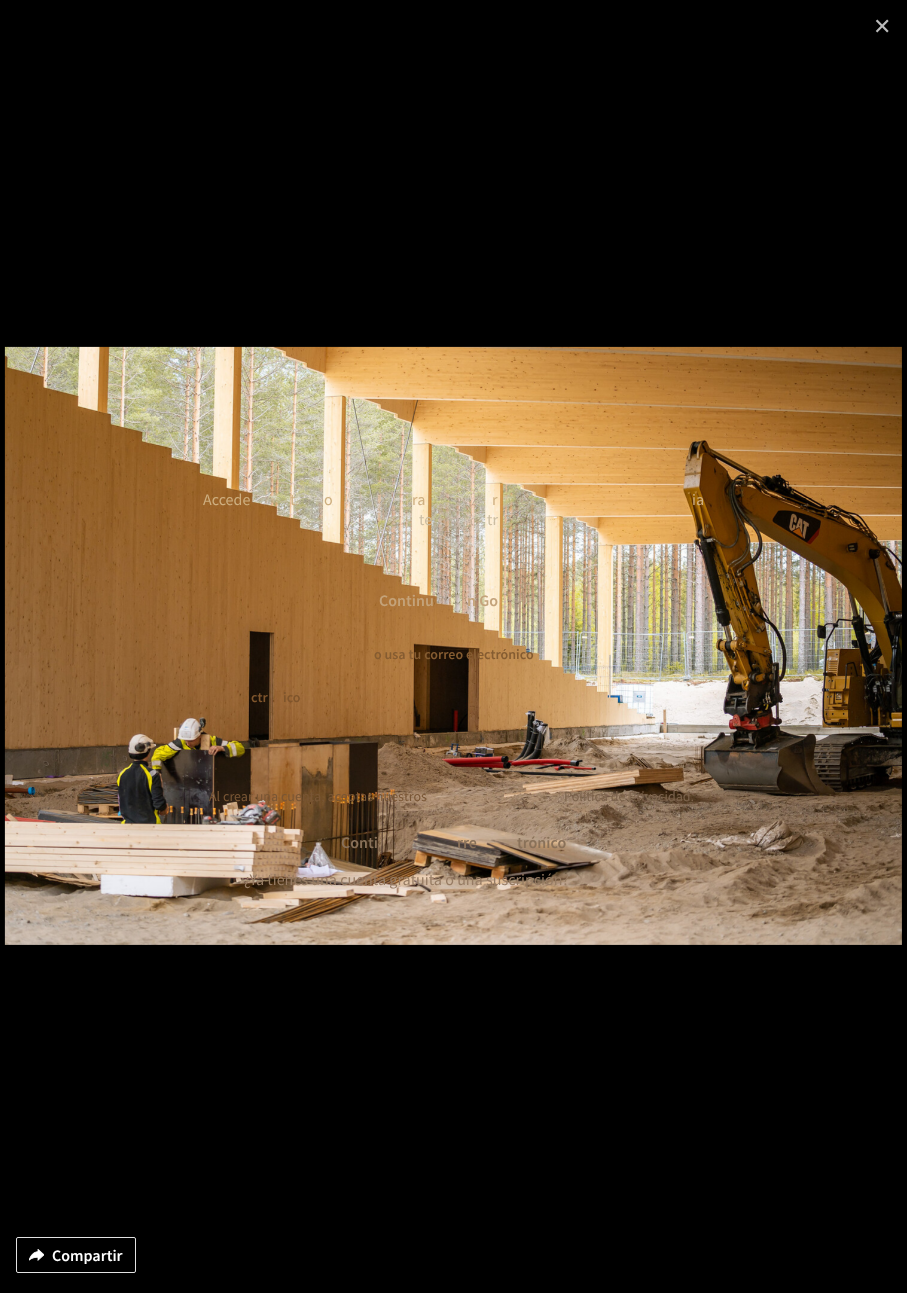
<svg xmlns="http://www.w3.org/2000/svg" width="907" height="1293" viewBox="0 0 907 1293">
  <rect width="100%" height="100%" fill="rgb(0,0,0)"/>
  <text x="873" y="34" font-family="DejaVu Sans" font-size="22" fill="rgb(187,187,187)">✕</text>
  <image x="4" y="346" width="898" height="599" href="pic1.png"/>
  <rect x="16.5" y="1237.5" width="119" height="35" rx="1.5" fill="none" stroke="rgb(225,225,225)"/>
  <image x="29" y="1249" width="15" height="12" href="pic2.png"/>
  <text x="52" y="1261" font-family="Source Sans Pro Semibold" font-size="16" font-weight="600" fill="rgb(255,255,255)">Compartir</text>
  <g font-family="Source Sans Pro" font-size="16" fill="rgb(206,175,128)">
    <text x="203" y="505">Accede</text>
    <text x="290" y="505">t</text>
    <text x="324" y="505">o</text>
    <text x="412" y="505">ra</text>
    <text x="492" y="505">r</text>
    <text x="692" y="505">ia</text>
  </g>
  <g font-family="Source Sans Pro" font-size="16" fill="rgb(204,190,163)">
    <text x="419" y="525">te</text>
    <text x="487" y="525">tr</text>
  </g>
  <g font-family="Source Sans Pro Semibold" font-size="16" font-weight="600" fill="rgb(196,163,122)">
    <text x="379" y="606">Continu</text>
    <text x="467" y="606">n Go</text>
  </g>
  <text x="374" y="659" font-family="Source Sans Pro Semibold" font-size="14" font-weight="600" fill="rgb(133,92,49)">o usa tu correo electrónico</text>
  <g font-family="Source Sans Pro Semibold" font-size="14" font-weight="600" fill="rgb(127,85,44)">
    <text x="251" y="702">ctr</text>
    <text x="283" y="702">ico</text>
  </g>
  <text x="209" y="801" font-family="Source Sans Pro" font-size="14" fill="rgb(121,86,53)">Al crear una cuenta, aceptas nuestros</text>
  <text x="564" y="801" font-family="Source Sans Pro" font-size="14" fill="rgb(124,99,76)">Política de Privacidad.</text>
  <g font-family="Source Sans Pro Semibold" font-size="16" font-weight="600" fill="rgb(137,113,89)">
    <text x="341" y="848">Conti</text>
    <text x="457" y="848">rre</text>
    <text x="517" y="848">trónico</text>
  </g>
  <text x="244" y="885" font-family="Source Sans Pro" font-size="16" fill="rgb(151,124,100)">¿Ya tienes una cuenta gratuita o una suscripción?</text>
</svg>
